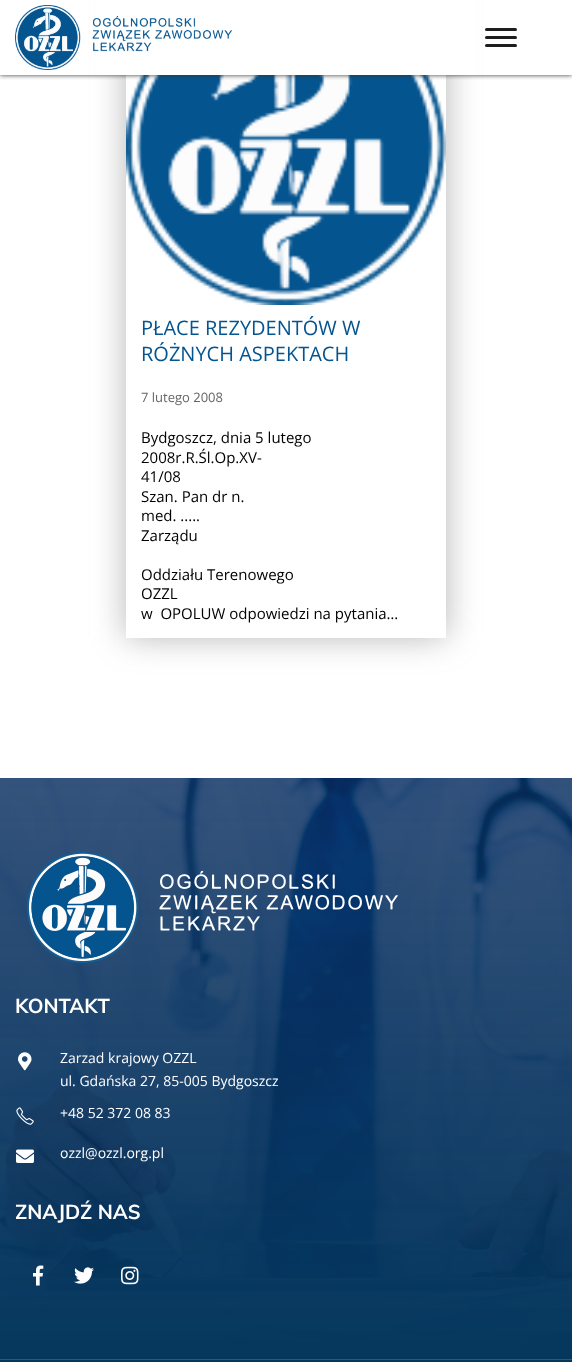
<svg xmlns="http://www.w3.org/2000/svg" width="572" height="1362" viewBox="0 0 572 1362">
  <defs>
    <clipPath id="clip1"><path d="M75 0H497V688H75ZM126-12H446V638H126Z" clip-rule="evenodd"/></clipPath>
    <clipPath id="clip2"><rect x="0" y="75" width="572" height="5"/></clipPath>
  </defs>
  <rect width="100%" height="100%" fill="rgb(255,255,255)"/>
  <g clip-path="url(#clip1)">
    <rect x="126" y="-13" width="320" height="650" fill="rgba(111,109,113,0.51)" filter="blur(16.5px)"/>
  </g>
  <rect x="96" y="0" width="380" height="75" fill="rgb(255,255,255)"/>
  <image x="126" y="75" width="320" height="230" href="pic2.png"/>
  <g clip-path="url(#clip2)">
    <rect x="0" y="0" width="572" height="75" fill="rgb(51,51,51)" filter="blur(2.5px)"/>
  </g>
  <image x="15" y="5" width="217" height="65" href="pic1.png"/>
  <rect x="485" y="28" width="32" height="3" rx="1.5" fill="rgb(30,30,30)"/>
  <rect x="485" y="36" width="32" height="3" rx="1.5" fill="rgb(30,30,30)"/>
  <rect x="485" y="44" width="32" height="3" rx="1.5" fill="rgb(30,30,30)"/>
  <g font-family="Open Sans" font-size="20" fill="rgb(4,84,143)">
    <text>
      <tspan x="141" y="335">PŁACE REZYDENTÓW W</tspan>
      <tspan x="141" y="361">RÓŻNYCH ASPEKTACH</tspan>
    </text>
  </g>
  <text x="141" y="402" font-family="Open Sans" font-size="13" fill="rgb(102,102,102)">7 lutego 2008</text>
  <g font-family="Open Sans" font-size="15" fill="rgb(0,0,0)">
    <text>
      <tspan x="141" y="443">Bydgoszcz, dnia 5 lutego</tspan>
      <tspan x="141" y="463">2008r.R.Śl.Op.XV-</tspan>
      <tspan x="141" y="482">41/08</tspan>
      <tspan x="141" y="502">Szan. Pan dr n.</tspan>
      <tspan x="141" y="521">med. .....</tspan>
      <tspan x="141" y="541">Zarządu</tspan>
    </text>
    <text xml:space="preserve"><tspan x="141" y="580">Oddziału Terenowego</tspan><tspan x="141" y="599">OZZL</tspan><tspan x="141" y="619">w  OPOLUW odpowiedzi na pytania…</tspan></text>
  </g>
  <image x="0" y="778" width="572" height="581" href="pic3.png"/>
  <image x="27" y="852" width="371" height="111" href="pic4.png"/>
  <text x="15" y="1013" font-family="Muli" font-size="20" font-weight="bold" fill="rgb(255,255,255)">KONTAKT</text>
  <image x="18" y="1052" width="14" height="19" href="pic5.png"/>
  <g font-family="Open Sans" font-size="14" fill="rgb(255,255,255)">
    <text>
      <tspan x="60" y="1063">Zarzad krajowy OZZL</tspan>
      <tspan x="60" y="1086">ul. Gdańska 27, 85-005 Bydgoszcz</tspan>
    </text>
  </g>
  <image x="16" y="1107" width="18" height="18" href="pic6.png"/>
  <text x="60" y="1118" font-family="Open Sans" font-size="14" fill="rgb(255,255,255)">+48 52 372 08 83</text>
  <image x="16" y="1149" width="18" height="14" href="pic7.png"/>
  <text x="60" y="1158" font-family="Open Sans" font-size="14" fill="rgb(255,255,255)">ozzl@ozzl.org.pl</text>
  <text x="15" y="1219" font-family="Muli" font-size="20" font-weight="bold" fill="rgb(255,255,255)">ZNAJDŹ NAS</text>
  <image x="33" y="1265" width="11" height="21" href="pic8.png"/>
  <image x="74" y="1267" width="20" height="17" href="pic9.png"/>
  <image x="121" y="1266" width="18" height="19" href="pic10.png"/>
  <rect x="0" y="1360" width="572" height="2" fill="rgb(5,55,93)"/>
  <rect x="0" y="1359" width="572" height="1" fill="rgb(45,87,119)"/>
</svg>
